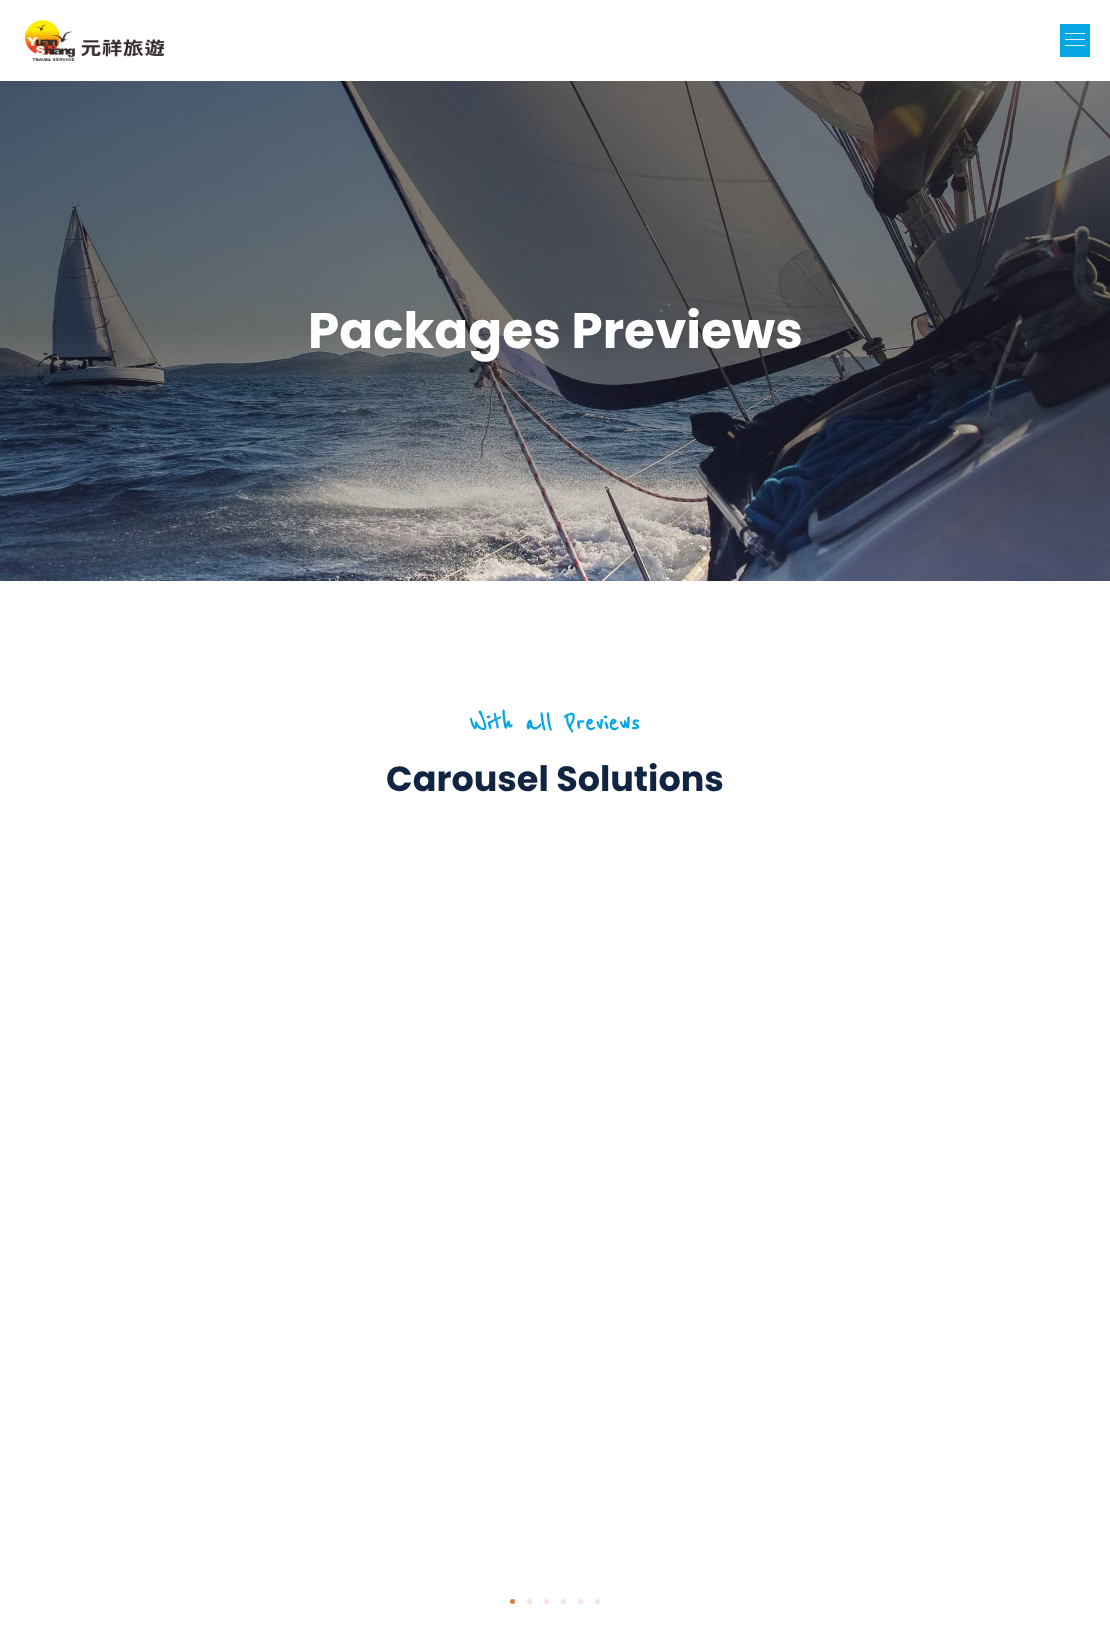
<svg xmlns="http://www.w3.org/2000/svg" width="1110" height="1635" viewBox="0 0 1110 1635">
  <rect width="100%" height="100%" fill="rgb(255,255,255)"/>
  <image x="24" y="20" width="141" height="41" href="pic1.png"/>
  <rect x="1060" y="24" width="30" height="33" fill="rgb(6,166,227)"/>
  <rect x="1065" y="33" width="20" height="1" fill="rgb(225,244,252)"/>
  <rect x="1065" y="39" width="20" height="1" fill="rgb(225,244,252)"/>
  <rect x="1065" y="45" width="20" height="1" fill="rgb(225,244,252)"/>
  <image x="0" y="81" width="1110" height="500" href="pic2.png"/>
  <text x="308" y="348" font-family="Poppins" font-size="50" font-weight="bold" fill="rgb(255,255,255)">Packages Previews</text>
  <text x="470" y="731" font-family="Reenie Beanie" font-size="30" font-weight="bold" fill="rgb(6,166,227)">With all Previews</text>
  <text x="386" y="791" font-family="Poppins" font-size="35" font-weight="bold" fill="rgb(17,37,66)">Carousel Solutions</text>
  <circle cx="512.5" cy="1601.5" r="2.5" fill="rgb(213,124,75)"/>
  <circle cx="529.5" cy="1601.5" r="2.5" fill="rgb(247,229,219)"/>
  <circle cx="546.5" cy="1601.5" r="2.5" fill="rgb(247,229,219)"/>
  <circle cx="563.5" cy="1601.5" r="2.5" fill="rgb(247,229,219)"/>
  <circle cx="580.5" cy="1601.5" r="2.5" fill="rgb(247,229,219)"/>
  <circle cx="597.5" cy="1601.5" r="2.5" fill="rgb(247,229,219)"/>
</svg>
